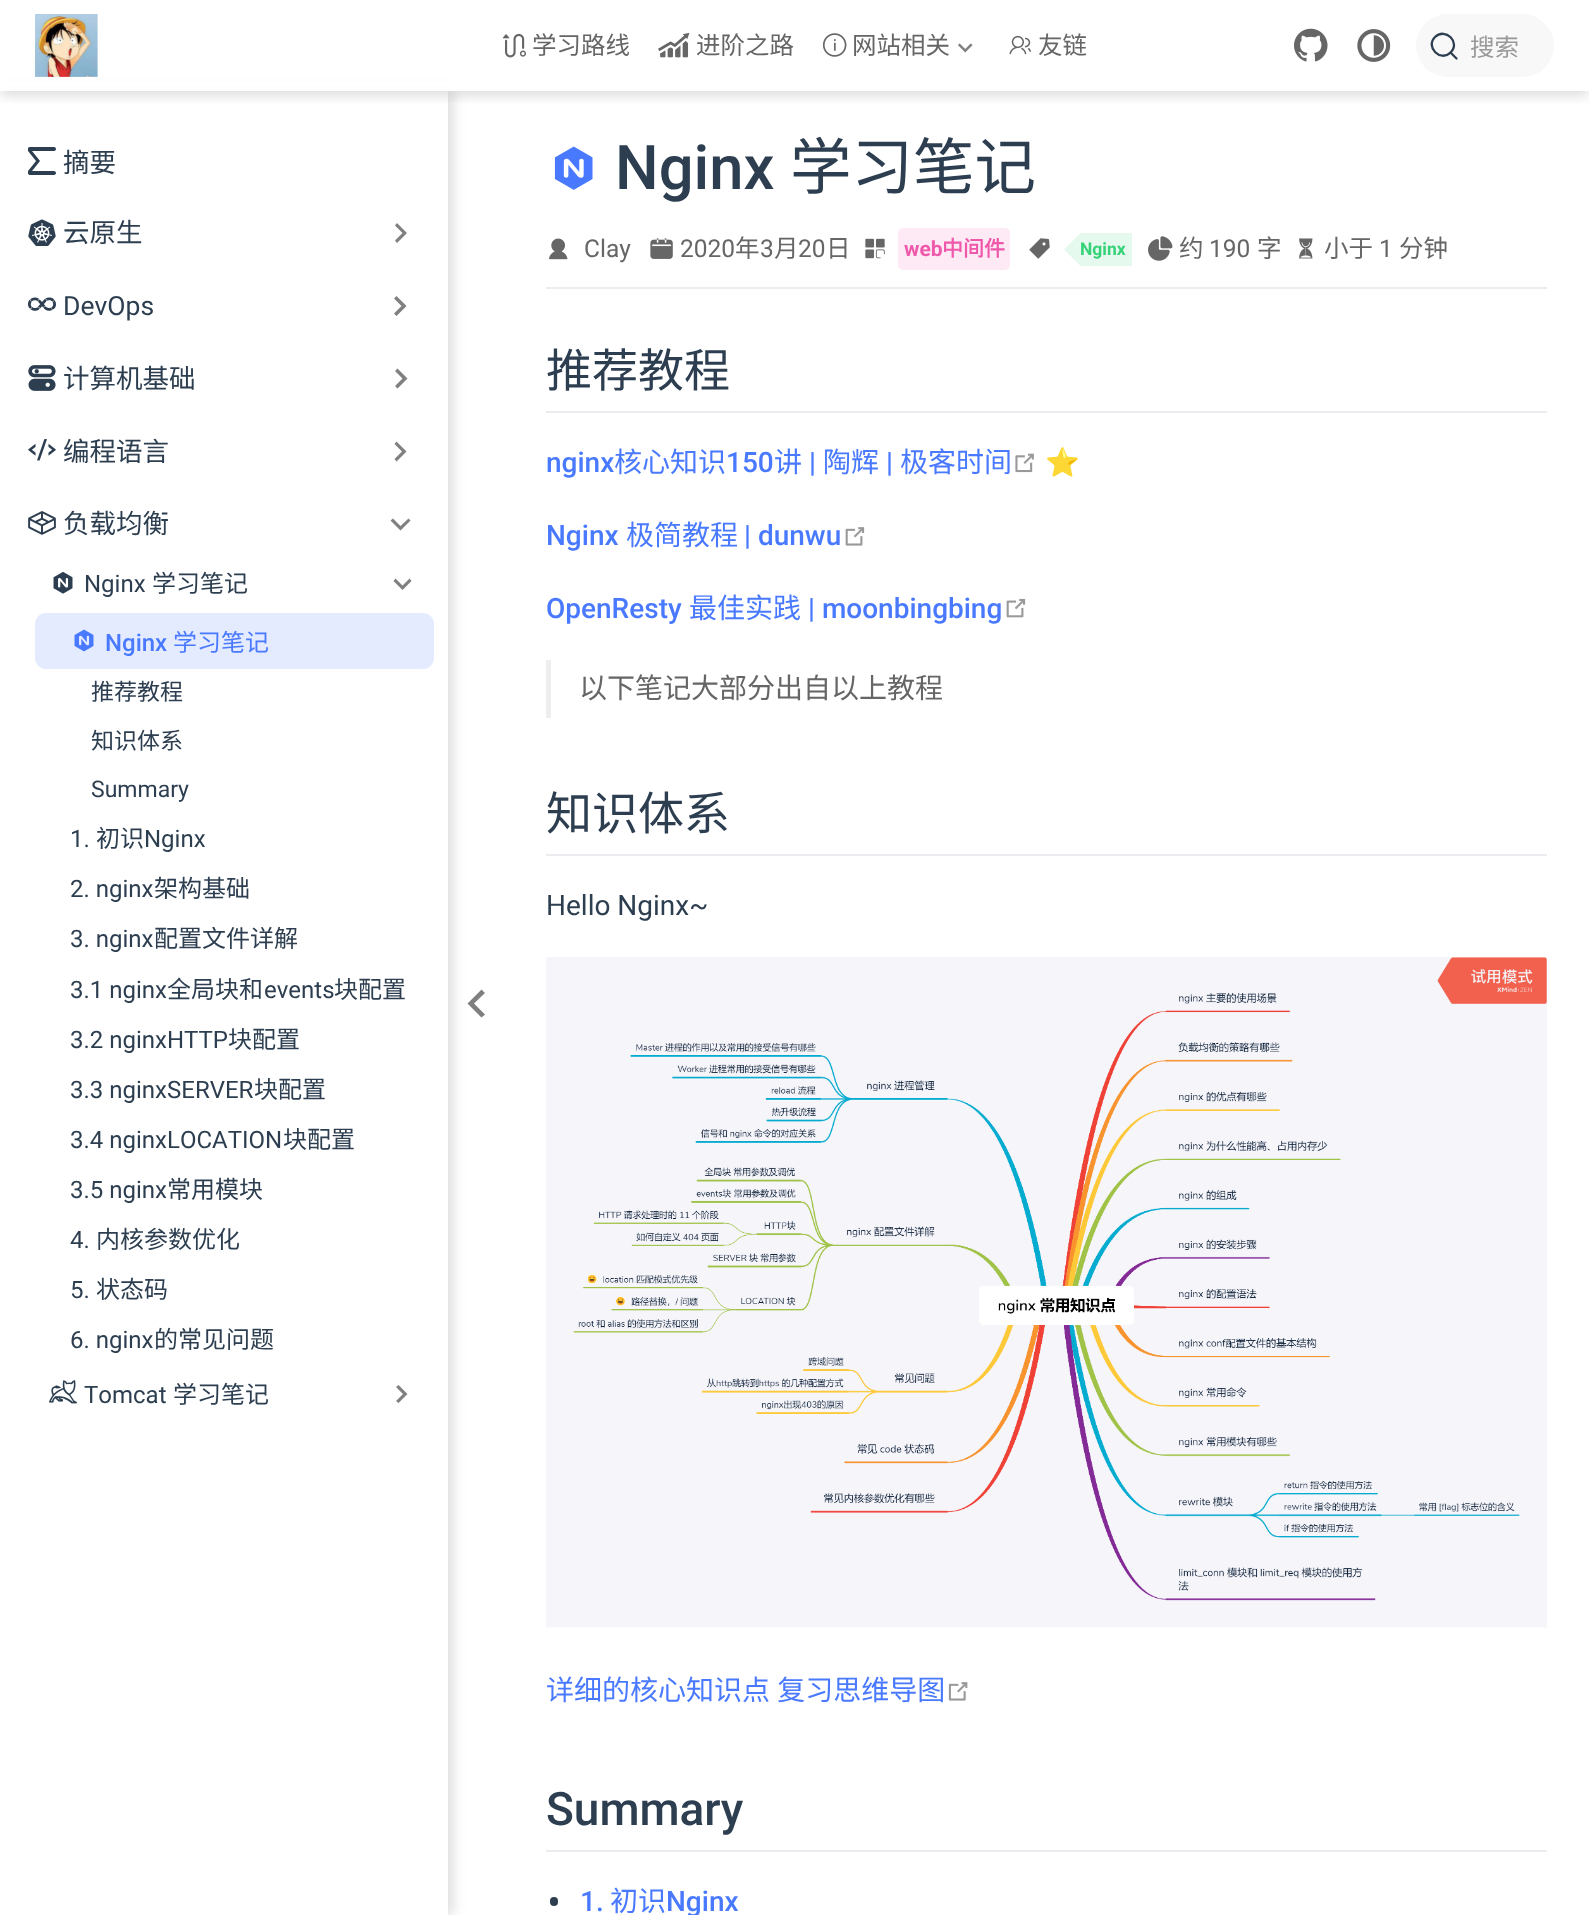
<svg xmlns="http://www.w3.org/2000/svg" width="1589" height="1915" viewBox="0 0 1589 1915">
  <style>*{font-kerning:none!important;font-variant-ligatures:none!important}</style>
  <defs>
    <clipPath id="clip1"><rect x="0" y="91" width="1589" height="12"/></clipPath>
    <clipPath id="clip2"><path d="M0 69H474V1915H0ZM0 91H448V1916H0Z" clip-rule="evenodd"/></clipPath>
    <linearGradient id="g1" gradientUnits="userSpaceOnUse" x1="1075" y1="279" x2="1119" y2="236"><stop offset="0.21" stop-color="rgb(255,255,255)"/><stop offset="0.21" stop-color="rgb(230,249,238)"/></linearGradient>
    <linearGradient id="g2" gradientUnits="userSpaceOnUse" x1="1075" y1="220" x2="1119" y2="263"><stop offset="0.21" stop-color="rgb(230,249,238)" stop-opacity="0"/><stop offset="0.21" stop-color="rgb(230,249,238)"/></linearGradient>
  </defs>
  <rect width="100%" height="100%" fill="rgb(255,255,255)"/>
  <g clip-path="url(#clip1)">
    <rect x="0" y="4" width="1589" height="91" fill="rgba(0,0,0,0.15)" filter="blur(7px)"/>
  </g>
  <g clip-path="url(#clip2)">
    <rect x="4" y="91" width="448" height="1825" fill="rgba(0,0,0,0.15)" filter="blur(7px)"/>
  </g>
  <rect x="0" y="81" width="459" height="10" fill="rgba(255,255,255,0.9)"/>
  <image x="35" y="14" width="63" height="63" href="pic1.png"/>
  <image x="502" y="33" width="24" height="25" href="pic2.png"/>
  <text x="532" y="54" font-family="Noto Sans CJK SC" font-size="24.5" fill="rgb(102,102,102)">学习路线</text>
  <image x="658" y="32" width="32" height="26" href="pic3.png"/>
  <text x="696" y="54" font-family="Noto Sans CJK SC" font-size="24.5" fill="rgb(102,102,102)">进阶之路</text>
  <image x="822" y="33" width="25" height="24" href="pic4.png"/>
  <text x="852" y="54" font-family="Noto Sans CJK SC" font-size="24.5" fill="rgb(102,102,102)">网站相关</text>
  <image x="958" y="43" width="15" height="10" href="pic5.png"/>
  <image x="1009" y="35" width="22" height="20" href="pic6.png"/>
  <text x="1038" y="54" font-family="Noto Sans CJK SC" font-size="24.5" fill="rgb(102,102,102)">友链</text>
  <image x="1294" y="28" width="34" height="34" href="pic7.png"/>
  <image x="1357" y="29" width="34" height="33" href="pic8.png"/>
  <rect x="1416" y="14" width="138" height="63" rx="31.5" fill="rgb(248,248,248)"/>
  <path d="M1450.5 52.5L1456.5 58.5L1450.5 52.5C1440.5 62.5 1425 47 1435 37C1445.5 27 1461 42.5 1450.5 52.5Z" fill="none" stroke="rgb(44,62,80)" stroke-width="2.3" stroke-linecap="round" stroke-linejoin="round"/>
  <text x="1470" y="56" font-family="Noto Sans CJK SC" font-size="24.5" fill="rgb(153,153,153)">搜索</text>
  <image x="28" y="147" width="28" height="28" href="pic9.png"/>
  <text x="63" y="172" font-family="Noto Sans CJK SC" font-size="26.5" fill="rgb(44,62,80)">摘要</text>
  <image x="28" y="219" width="28" height="27" href="pic10.png"/>
  <text x="63" y="242" font-family="Noto Sans CJK SC" font-size="26.5" fill="rgb(44,62,80)">云原生</text>
  <path d="M395 225.5L402.5 233L395 240.5L397 243L407 233L397 223Z" fill="rgb(128,128,128)"/>
  <image x="28" y="297" width="28" height="14" href="pic11.png"/>
  <text x="63" y="315" font-family="Roboto" font-size="26.5" fill="rgb(44,62,80)">DevOps</text>
  <path d="M394 298.5L401.5 306L394 313.5L396.5 316L406.5 306L396.5 296Z" fill="rgb(128,128,128)"/>
  <image x="28" y="365" width="28" height="26" href="pic12.png"/>
  <text x="63" y="388" font-family="Noto Sans CJK SC" font-size="26.5" fill="rgb(44,62,80)">计算机基础</text>
  <path d="M395 371L402.5 378.5L395 386L397.5 388.5L407.5 378.5L397.5 368.5Z" fill="rgb(128,128,128)"/>
  <image x="28" y="439" width="28" height="22" href="pic13.png"/>
  <text x="63" y="461" font-family="Noto Sans CJK SC" font-size="26.5" fill="rgb(44,62,80)">编程语言</text>
  <path d="M394.5 444L402 451.5L394.5 459L396.5 461.5L406.5 451.5L396.5 441.5Z" fill="rgb(128,128,128)"/>
  <image x="28" y="511" width="28" height="24" href="pic14.png"/>
  <text x="63" y="533" font-family="Noto Sans CJK SC" font-size="26.5" fill="rgb(44,62,80)">负载均衡</text>
  <path d="M408.5 518.5L400.5 526L393 518.5L390.5 520.5L400.5 530.5L410.5 520.5Z" fill="rgb(128,128,128)"/>
  <image x="53" y="571" width="20" height="23" href="pic15.png"/>
  <text x="84" y="592" font-family="Roboto" font-size="24" fill="rgb(44,62,80)">Nginx</text>
  <text x="152" y="592" font-family="Noto Sans CJK SC" font-size="24" fill="rgb(44,62,80)">学习笔记</text>
  <path d="M409.5 578.5L402.5 585.5L395.5 578.5L393.5 581L402.5 590L411.5 581Z" fill="rgb(128,128,128)"/>
  <rect x="35" y="613" width="399" height="56" rx="11" fill="rgb(228,235,255)"/>
  <image x="74" y="629" width="20" height="23" href="pic16.png"/>
  <text x="105" y="651" font-family="Roboto" font-size="24" font-weight="500" fill="rgb(73,121,255)">Nginx</text>
  <text x="173" y="651" font-family="Noto Sans CJK SC" font-size="24" fill="rgb(73,121,255)">学习笔记</text>
  <g font-family="Noto Sans CJK SC" font-size="23" fill="rgb(44,62,80)">
    <text x="91" y="700">推荐教程</text>
    <text x="91" y="749">知识体系</text>
  </g>
  <text x="91" y="797" font-family="Roboto" font-size="23" fill="rgb(44,62,80)">Summary</text>
  <text x="70" y="847" font-family="Roboto" font-size="24" fill="rgb(44,62,80)">1.</text>
  <text x="96" y="847" font-family="Noto Sans CJK SC" font-size="24" fill="rgb(44,62,80)">初识</text>
  <g font-family="Roboto" font-size="24" fill="rgb(44,62,80)">
    <text x="144" y="847">Nginx</text>
    <text x="70" y="897">2. nginx</text>
  </g>
  <text x="154" y="897" font-family="Noto Sans CJK SC" font-size="24" fill="rgb(44,62,80)">架构基础</text>
  <text x="70" y="947" font-family="Roboto" font-size="24" fill="rgb(44,62,80)">3. nginx</text>
  <text x="154" y="947" font-family="Noto Sans CJK SC" font-size="24" fill="rgb(44,62,80)">配置文件详解</text>
  <text x="70" y="998" font-family="Roboto" font-size="24" fill="rgb(44,62,80)">3.1 nginx</text>
  <text x="167" y="998" font-family="Noto Sans CJK SC" font-size="24" fill="rgb(44,62,80)">全局块和</text>
  <text x="264" y="998" font-family="Roboto" font-size="24" fill="rgb(44,62,80)">events</text>
  <text x="334" y="998" font-family="Noto Sans CJK SC" font-size="24" fill="rgb(44,62,80)">块配置</text>
  <text x="70" y="1048" font-family="Roboto" font-size="24" fill="rgb(44,62,80)">3.2 nginxHTTP</text>
  <text x="228" y="1048" font-family="Noto Sans CJK SC" font-size="24" fill="rgb(44,62,80)">块配置</text>
  <text x="70" y="1098" font-family="Roboto" font-size="24" fill="rgb(44,62,80)">3.3 nginxSERVER</text>
  <text x="254" y="1098" font-family="Noto Sans CJK SC" font-size="24" fill="rgb(44,62,80)">块配置</text>
  <text x="70" y="1148" font-family="Roboto" font-size="24" fill="rgb(44,62,80)">3.4 nginxLOCATION</text>
  <text x="283" y="1148" font-family="Noto Sans CJK SC" font-size="24" fill="rgb(44,62,80)">块配置</text>
  <text x="70" y="1198" font-family="Roboto" font-size="24" fill="rgb(44,62,80)">3.5 nginx</text>
  <text x="167" y="1198" font-family="Noto Sans CJK SC" font-size="24" fill="rgb(44,62,80)">常用模块</text>
  <text x="70" y="1248" font-family="Roboto" font-size="24" fill="rgb(44,62,80)">4.</text>
  <text x="96" y="1248" font-family="Noto Sans CJK SC" font-size="24" fill="rgb(44,62,80)">内核参数优化</text>
  <text x="70" y="1298" font-family="Roboto" font-size="24" fill="rgb(44,62,80)">5.</text>
  <text x="96" y="1298" font-family="Noto Sans CJK SC" font-size="24" fill="rgb(44,62,80)">状态码</text>
  <text x="70" y="1348" font-family="Roboto" font-size="24" fill="rgb(44,62,80)">6. nginx</text>
  <text x="154" y="1348" font-family="Noto Sans CJK SC" font-size="24" fill="rgb(44,62,80)">的常见问题</text>
  <image x="49" y="1380" width="28" height="24" href="pic17.png"/>
  <text x="84" y="1403" font-family="Roboto" font-size="24" fill="rgb(44,62,80)">Tomcat</text>
  <text x="173" y="1403" font-family="Noto Sans CJK SC" font-size="24" fill="rgb(44,62,80)">学习笔记</text>
  <path d="M396 1387L403 1394L396 1401L398.5 1403L407.5 1394L398.5 1385Z" fill="rgb(128,128,128)"/>
  <path d="M485 1014.5L474 1003.5L485 993L481.5 989.5L467.5 1003.5L481.5 1017.5Z" fill="rgb(127,127,127)"/>
  <image x="554" y="146" width="39" height="44" href="pic18.png"/>
  <text x="615" y="189" font-family="Roboto" font-size="61.5" font-weight="500" fill="rgb(44,62,80)">Nginx</text>
  <text x="790" y="189" font-family="Noto Sans CJK SC" font-size="61.5" fill="rgb(44,62,80)">学习笔记</text>
  <image x="549" y="238" width="19" height="22" href="pic19.png"/>
  <text x="584" y="257" font-family="Roboto" font-size="24.5" fill="rgb(102,102,102)">Clay</text>
  <image x="650" y="238" width="23" height="21" href="pic20.png"/>
  <text x="680" y="257" font-family="Roboto" font-size="24.5" fill="rgb(102,102,102)">2020</text>
  <text x="735" y="257" font-family="Noto Sans CJK SC" font-size="24.5" fill="rgb(102,102,102)">年</text>
  <text x="760" y="257" font-family="Roboto" font-size="24.5" fill="rgb(102,102,102)">3</text>
  <text x="774" y="257" font-family="Noto Sans CJK SC" font-size="24.5" fill="rgb(102,102,102)">月</text>
  <text x="798" y="257" font-family="Roboto" font-size="24.5" fill="rgb(102,102,102)">20</text>
  <text x="826" y="257" font-family="Noto Sans CJK SC" font-size="24.5" fill="rgb(102,102,102)">日</text>
  <image x="865" y="238" width="20" height="21" href="pic21.png"/>
  <rect x="898" y="228" width="112" height="42" rx="5" fill="rgb(253,234,245)"/>
  <text x="904" y="256" font-family="Roboto" font-size="21" font-weight="bold" fill="rgb(239,89,171)">web</text>
  <text x="942" y="256" font-family="Noto Sans CJK SC" font-size="21" font-weight="bold" fill="rgb(239,89,171)">中间件</text>
  <image x="1029" y="238" width="21" height="21" href="pic22.png"/>
  <rect x="1064" y="249" width="68" height="17" fill="url(#g1)"/>
  <rect x="1065" y="233" width="67" height="16" fill="url(#g2)"/>
  <text x="1080" y="255" font-family="Roboto" font-size="17.5" font-weight="bold" fill="rgb(54,210,120)">Nginx</text>
  <image x="1148" y="236" width="25" height="25" href="pic23.png"/>
  <text x="1179" y="257" font-family="Noto Sans CJK SC" font-size="24.5" fill="rgb(102,102,102)">约</text>
  <text x="1209" y="257" font-family="Roboto" font-size="24.5" fill="rgb(102,102,102)">190</text>
  <text x="1257" y="257" font-family="Noto Sans CJK SC" font-size="24.5" fill="rgb(102,102,102)">字</text>
  <image x="1299" y="238" width="14" height="21" href="pic24.png"/>
  <text x="1324" y="257" font-family="Noto Sans CJK SC" font-size="24.5" fill="rgb(102,102,102)">小于</text>
  <text x="1379" y="257" font-family="Roboto" font-size="24.5" fill="rgb(102,102,102)">1</text>
  <text x="1399" y="257" font-family="Noto Sans CJK SC" font-size="24.5" fill="rgb(102,102,102)">分钟</text>
  <rect x="546" y="287" width="1001" height="2" fill="rgb(234,236,239)"/>
  <rect x="546" y="411" width="1001" height="2" fill="rgb(234,236,239)"/>
  <text x="546" y="387" font-family="Noto Sans CJK SC" font-size="46" fill="rgb(44,62,80)">推荐教程</text>
  <text x="546" y="472" font-family="Roboto" font-size="28" font-weight="500" fill="rgb(73,121,255)">nginx</text>
  <text x="614" y="472" font-family="Noto Sans CJK SC" font-size="28" fill="rgb(73,121,255)">核心知识</text>
  <text x="726" y="472" font-family="Roboto" font-size="28" font-weight="500" fill="rgb(73,121,255)">150</text>
  <text x="774" y="472" font-family="Noto Sans CJK SC" font-size="28" fill="rgb(73,121,255)">讲</text>
  <text x="809" y="472" font-family="Roboto" font-size="28" font-weight="500" fill="rgb(73,121,255)">|</text>
  <text x="823" y="472" font-family="Noto Sans CJK SC" font-size="28" fill="rgb(73,121,255)">陶辉</text>
  <text x="886" y="472" font-family="Roboto" font-size="28" font-weight="500" fill="rgb(73,121,255)">|</text>
  <text x="900" y="472" font-family="Noto Sans CJK SC" font-size="28" fill="rgb(73,121,255)">极客时间</text>
  <image x="1015" y="453" width="19" height="20" href="pic25.png"/>
  <text x="1045" y="472" font-family="Noto Color Emoji" font-size="28" fill="rgb(44,62,80)">⭐</text>
  <text x="546" y="545" font-family="Roboto" font-size="28" font-weight="500" fill="rgb(73,121,255)">Nginx</text>
  <text x="626" y="545" font-family="Noto Sans CJK SC" font-size="28" fill="rgb(73,121,255)">极简教程</text>
  <text x="744" y="545" font-family="Roboto" font-size="28" font-weight="500" fill="rgb(73,121,255)">| dunwu</text>
  <image x="845" y="527" width="20" height="19" href="pic26.png"/>
  <text x="546" y="618" font-family="Roboto" font-size="28" font-weight="500" fill="rgb(73,121,255)">OpenResty</text>
  <text x="689" y="618" font-family="Noto Sans CJK SC" font-size="28" fill="rgb(73,121,255)">最佳实践</text>
  <text x="808" y="618" font-family="Roboto" font-size="28" font-weight="500" fill="rgb(73,121,255)">| moonbingbing</text>
  <image x="1006" y="598" width="20" height="20" href="pic27.png"/>
  <rect x="546" y="660" width="5" height="58" fill="rgb(238,238,238)"/>
  <text x="579" y="698" font-family="Noto Sans CJK SC" font-size="28" fill="rgb(102,102,102)">以下笔记大部分出自以上教程</text>
  <rect x="546" y="854" width="1001" height="2" fill="rgb(234,236,239)"/>
  <text x="546" y="830" font-family="Noto Sans CJK SC" font-size="46" fill="rgb(44,62,80)">知识体系</text>
  <text x="546" y="915" font-family="Roboto" font-size="28" fill="rgb(44,62,80)">Hello Nginx~</text>
  <image x="546" y="957" width="1001" height="671" href="pic28.png"/>
  <text x="546" y="1700" word-spacing="1" font-family="Noto Sans CJK SC" font-size="28" fill="rgb(73,121,255)">详细的核心知识点 复习思维导图</text>
  <image x="948" y="1682" width="20" height="19" href="pic29.png"/>
  <rect x="546" y="1850" width="1001" height="2" fill="rgb(234,236,239)"/>
  <text x="546" y="1825" font-family="Roboto" font-size="46" font-weight="500" fill="rgb(44,62,80)">Summary</text>
  <rect x="550" y="1897" width="8" height="9" rx="4" fill="rgb(44,62,80)"/>
  <text x="580" y="1911" font-family="Roboto" font-size="28" font-weight="500" fill="rgb(73,121,255)">1.</text>
  <text x="610" y="1911" font-family="Noto Sans CJK SC" font-size="28" fill="rgb(73,121,255)">初识</text>
  <text x="666" y="1911" font-family="Roboto" font-size="28" font-weight="500" fill="rgb(73,121,255)">Nginx</text>
</svg>
